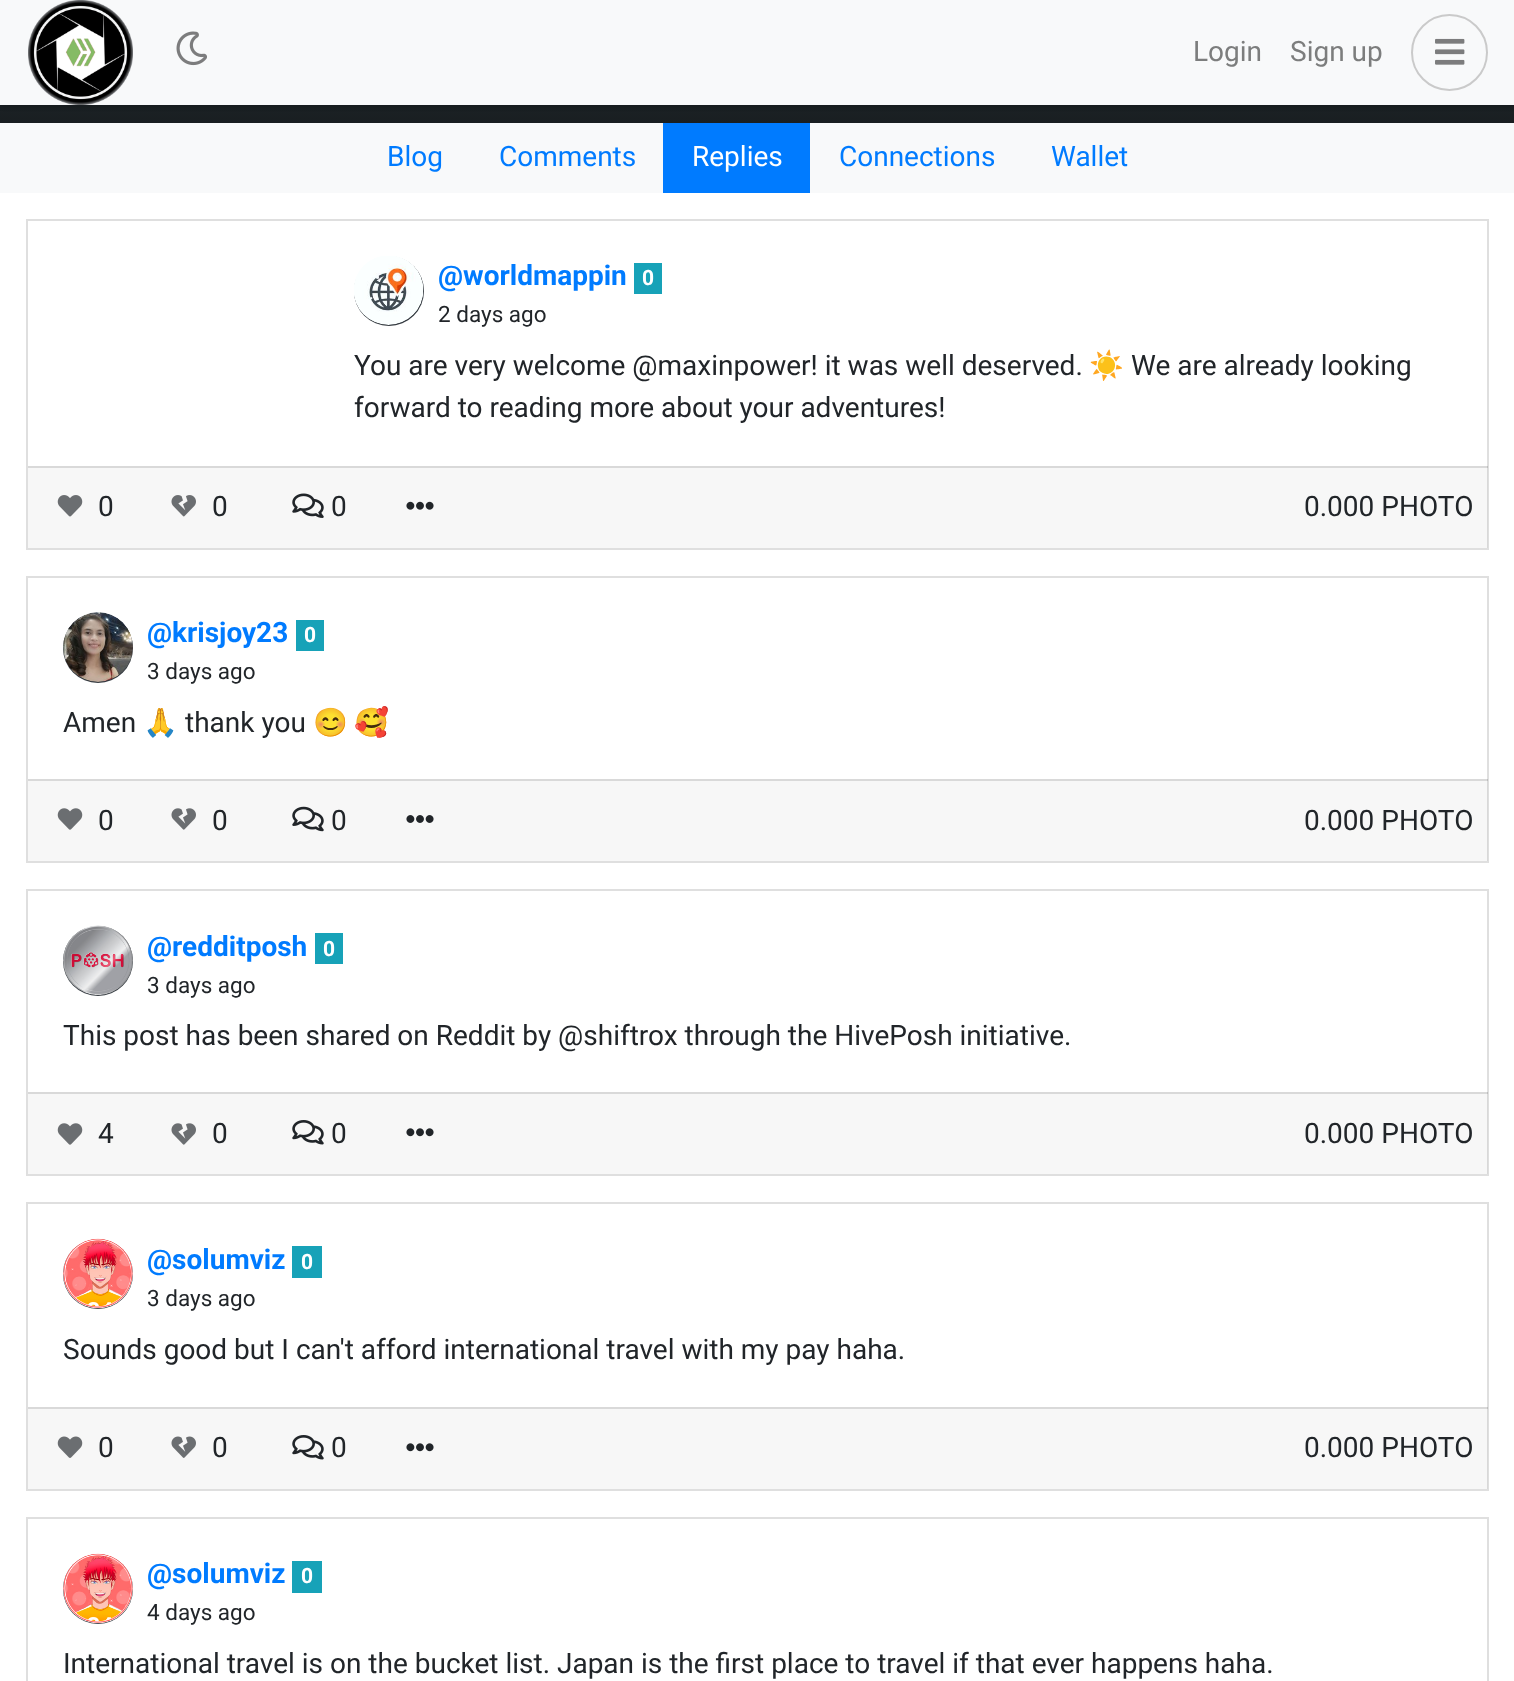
<svg xmlns="http://www.w3.org/2000/svg" width="1514" height="1681" viewBox="0 0 1514 1681">
  <defs>
    <linearGradient id="g1" gradientUnits="userSpaceOnUse" x1="758" y1="-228" x2="758" y2="123"><stop offset="0" stop-color="rgb(55,72,80)"/><stop offset="0.4" stop-color="rgb(55,72,80)"/><stop offset="1" stop-color="rgb(25,30,33)"/></linearGradient>
  </defs>
  <rect width="100%" height="100%" fill="rgb(255,255,255)"/>
  <rect x="0" y="105" width="1514" height="18" fill="url(#g1)"/>
  <rect x="0" y="2" width="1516" height="105" fill="rgba(0,0,0,0.14)" filter="blur(2px)"/>
  <rect x="0" y="2" width="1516" height="105" fill="rgba(0,0,0,0.07)" filter="blur(2.5px)"/>
  <rect x="0" y="0" width="1514" height="105" fill="rgb(248,249,250)"/>
  <image x="28" y="0" width="105" height="105" href="pic1.png"/>
  <image x="176" y="31" width="31" height="35" href="pic2.png"/>
  <g font-family="Roboto" font-size="28" fill="rgb(124,125,125)">
    <text x="1193" y="61">Login</text>
    <text x="1290" y="61">Sign up</text>
  </g>
  <circle cx="1449.5" cy="52.5" r="37.5" fill="none" stroke="rgb(202,202,202)" stroke-width="2"/>
  <image x="1435" y="38" width="30" height="27" href="pic3.png"/>
  <rect x="0" y="123" width="1514" height="70" fill="rgb(248,249,250)"/>
  <g font-family="Roboto" font-size="28" fill="rgb(0,123,255)">
    <text x="387" y="166">Blog</text>
    <text x="499" y="166">Comments</text>
  </g>
  <rect x="663" y="123" width="147" height="70" fill="rgb(0,123,255)"/>
  <text x="692" y="166" font-family="Roboto" font-size="28" fill="rgb(255,255,255)">Replies</text>
  <g font-family="Roboto" font-size="28" fill="rgb(0,123,255)">
    <text x="839" y="166">Connections</text>
    <text x="1051" y="166">Wallet</text>
  </g>
  <rect x="27" y="220" width="1461" height="329" fill="none" stroke="rgb(223,223,223)" stroke-width="2"/>
  <circle cx="389" cy="291" r="35" fill="rgb(52,58,64)"/>
  <image x="354" y="256" width="70" height="69" href="pic4.png"/>
  <text x="438" y="285" font-family="Roboto" font-size="28" font-weight="bold" fill="rgb(0,123,255)">@worldmappin</text>
  <rect x="634" y="263" width="28" height="31" fill="rgb(23,162,184)"/>
  <text x="642" y="285" font-family="Roboto" font-size="21" font-weight="bold" fill="rgb(255,255,255)">0</text>
  <text x="438" y="322" font-family="Roboto" font-size="22.5" fill="rgb(33,37,41)">2 days ago</text>
  <text x="354" y="375" font-family="Roboto" font-size="28" fill="rgb(33,37,41)">You are very welcome @maxinpower! it was well deserved.</text>
  <text x="1089" y="375" font-family="Noto Color Emoji" font-size="28" fill="rgb(33,37,41)">☀️</text>
  <g font-family="Roboto" font-size="28" fill="rgb(33,37,41)">
    <text x="1131" y="375">We are already looking</text>
    <text x="354" y="417">forward to reading more about your adventures!</text>
  </g>
  <rect x="28" y="466" width="1460" height="82" fill="rgba(0,0,0,0.03)"/>
  <rect x="28" y="466" width="1460" height="2" fill="rgba(0,0,0,0.12)"/>
  <image x="57" y="495" width="26" height="22" href="pic5.png"/>
  <text x="98" y="516" font-family="Roboto" font-size="28" fill="rgb(33,37,41)">0</text>
  <image x="171" y="495" width="25" height="22" href="pic6.png"/>
  <text x="212" y="516" font-family="Roboto" font-size="28" fill="rgb(33,37,41)">0</text>
  <image x="292" y="493" width="32" height="25" href="pic7.png"/>
  <text x="331" y="516" font-family="Roboto" font-size="28" fill="rgb(33,37,41)">0</text>
  <image x="406" y="501" width="28" height="9" href="pic8.png"/>
  <text x="1304" y="516" font-family="Roboto" font-size="28" fill="rgb(33,37,41)">0.000 PHOTO</text>
  <rect x="27" y="577" width="1461" height="285" fill="none" stroke="rgb(223,223,223)" stroke-width="2"/>
  <circle cx="98" cy="648" r="35" fill="rgb(52,58,64)"/>
  <image x="63" y="612" width="70" height="70" href="pic9.png"/>
  <text x="147" y="642" font-family="Roboto" font-size="28" font-weight="bold" fill="rgb(0,123,255)">@krisjoy23</text>
  <rect x="296" y="620" width="28" height="31" fill="rgb(23,162,184)"/>
  <text x="304" y="642" font-family="Roboto" font-size="21" font-weight="bold" fill="rgb(255,255,255)">0</text>
  <text x="147" y="679" font-family="Roboto" font-size="22.5" fill="rgb(33,37,41)">3 days ago</text>
  <text x="63" y="732" font-family="Roboto" font-size="28" fill="rgb(33,37,41)">Amen</text>
  <text x="143" y="732" font-family="Noto Color Emoji" font-size="28" fill="rgb(33,37,41)">🙏</text>
  <text x="185" y="732" font-family="Roboto" font-size="28" fill="rgb(33,37,41)">thank you</text>
  <g font-family="Noto Color Emoji" font-size="28" fill="rgb(33,37,41)">
    <text x="313" y="732">😊</text>
    <text x="354" y="732">🥰</text>
  </g>
  <rect x="28" y="779" width="1460" height="82" fill="rgba(0,0,0,0.03)"/>
  <rect x="28" y="779" width="1460" height="2" fill="rgba(0,0,0,0.12)"/>
  <image x="57" y="808" width="26" height="22" href="pic10.png"/>
  <text x="98" y="830" font-family="Roboto" font-size="28" fill="rgb(33,37,41)">0</text>
  <image x="171" y="808" width="25" height="22" href="pic11.png"/>
  <text x="212" y="830" font-family="Roboto" font-size="28" fill="rgb(33,37,41)">0</text>
  <image x="292" y="806" width="32" height="26" href="pic12.png"/>
  <text x="331" y="830" font-family="Roboto" font-size="28" fill="rgb(33,37,41)">0</text>
  <image x="406" y="815" width="28" height="8" href="pic13.png"/>
  <text x="1304" y="830" font-family="Roboto" font-size="28" fill="rgb(33,37,41)">0.000 PHOTO</text>
  <rect x="27" y="890" width="1461" height="285" fill="none" stroke="rgb(223,223,223)" stroke-width="2"/>
  <circle cx="98" cy="961" r="35" fill="rgb(52,58,64)"/>
  <image x="63" y="925" width="70" height="70" href="pic14.png"/>
  <text x="147" y="956" font-family="Roboto" font-size="28" font-weight="bold" fill="rgb(0,123,255)">@redditposh</text>
  <rect x="315" y="933" width="28" height="31" fill="rgb(23,162,184)"/>
  <text x="323" y="956" font-family="Roboto" font-size="21" font-weight="bold" fill="rgb(255,255,255)">0</text>
  <text x="147" y="993" font-family="Roboto" font-size="22.5" fill="rgb(33,37,41)">3 days ago</text>
  <text x="63" y="1045" font-family="Roboto" font-size="28" fill="rgb(33,37,41)">This post has been shared on Reddit by @shiftrox through the HivePosh initiative.</text>
  <rect x="28" y="1092" width="1460" height="82" fill="rgba(0,0,0,0.03)"/>
  <rect x="28" y="1092" width="1460" height="2" fill="rgba(0,0,0,0.12)"/>
  <image x="57" y="1123" width="26" height="22" href="pic10.png"/>
  <text x="98" y="1143" font-family="Roboto" font-size="28" fill="rgb(33,37,41)">4</text>
  <image x="171" y="1123" width="25" height="22" href="pic11.png"/>
  <text x="212" y="1143" font-family="Roboto" font-size="28" fill="rgb(33,37,41)">0</text>
  <image x="292" y="1120" width="32" height="25" href="pic15.png"/>
  <text x="331" y="1143" font-family="Roboto" font-size="28" fill="rgb(33,37,41)">0</text>
  <image x="406" y="1128" width="28" height="9" href="pic16.png"/>
  <text x="1304" y="1143" font-family="Roboto" font-size="28" fill="rgb(33,37,41)">0.000 PHOTO</text>
  <rect x="27" y="1203" width="1461" height="287" fill="none" stroke="rgb(223,223,223)" stroke-width="2"/>
  <circle cx="98" cy="1274" r="35" fill="rgb(52,58,64)"/>
  <image x="63" y="1238" width="70" height="71" href="pic17.png"/>
  <text x="147" y="1269" font-family="Roboto" font-size="28" font-weight="bold" fill="rgb(0,123,255)">@solumviz</text>
  <rect x="292" y="1246" width="30" height="32" fill="rgb(23,162,184)"/>
  <text x="301" y="1269" font-family="Roboto" font-size="21" font-weight="bold" fill="rgb(255,255,255)">0</text>
  <text x="147" y="1306" font-family="Roboto" font-size="22.5" fill="rgb(33,37,41)">3 days ago</text>
  <text x="63" y="1359" font-family="Roboto" font-size="28" fill="rgb(33,37,41)">Sounds good but I can't afford international travel with my pay haha.</text>
  <rect x="28" y="1407" width="1460" height="82" fill="rgba(0,0,0,0.03)"/>
  <rect x="28" y="1407" width="1460" height="2" fill="rgba(0,0,0,0.12)"/>
  <image x="57" y="1436" width="26" height="22" href="pic18.png"/>
  <text x="98" y="1457" font-family="Roboto" font-size="28" fill="rgb(33,37,41)">0</text>
  <image x="171" y="1436" width="25" height="22" href="pic19.png"/>
  <text x="212" y="1457" font-family="Roboto" font-size="28" fill="rgb(33,37,41)">0</text>
  <image x="292" y="1435" width="32" height="25" href="pic15.png"/>
  <text x="331" y="1457" font-family="Roboto" font-size="28" fill="rgb(33,37,41)">0</text>
  <image x="406" y="1443" width="28" height="9" href="pic16.png"/>
  <text x="1304" y="1457" font-family="Roboto" font-size="28" fill="rgb(33,37,41)">0.000 PHOTO</text>
  <rect x="27" y="1518" width="1461" height="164" fill="none" stroke="rgb(223,223,223)" stroke-width="2"/>
  <circle cx="98" cy="1589" r="35" fill="rgb(52,58,64)"/>
  <image x="63" y="1553" width="70" height="71" href="pic17.png"/>
  <text x="147" y="1583" font-family="Roboto" font-size="28" font-weight="bold" fill="rgb(0,123,255)">@solumviz</text>
  <rect x="292" y="1561" width="30" height="32" fill="rgb(23,162,184)"/>
  <text x="301" y="1583" font-family="Roboto" font-size="21" font-weight="bold" fill="rgb(255,255,255)">0</text>
  <text x="147" y="1620" font-family="Roboto" font-size="22.5" fill="rgb(33,37,41)">4 days ago</text>
  <text x="63" y="1673" font-family="Roboto" font-size="28" fill="rgb(33,37,41)">International travel is on the bucket list. Japan is the first place to travel if that ever happens haha.</text>
</svg>
